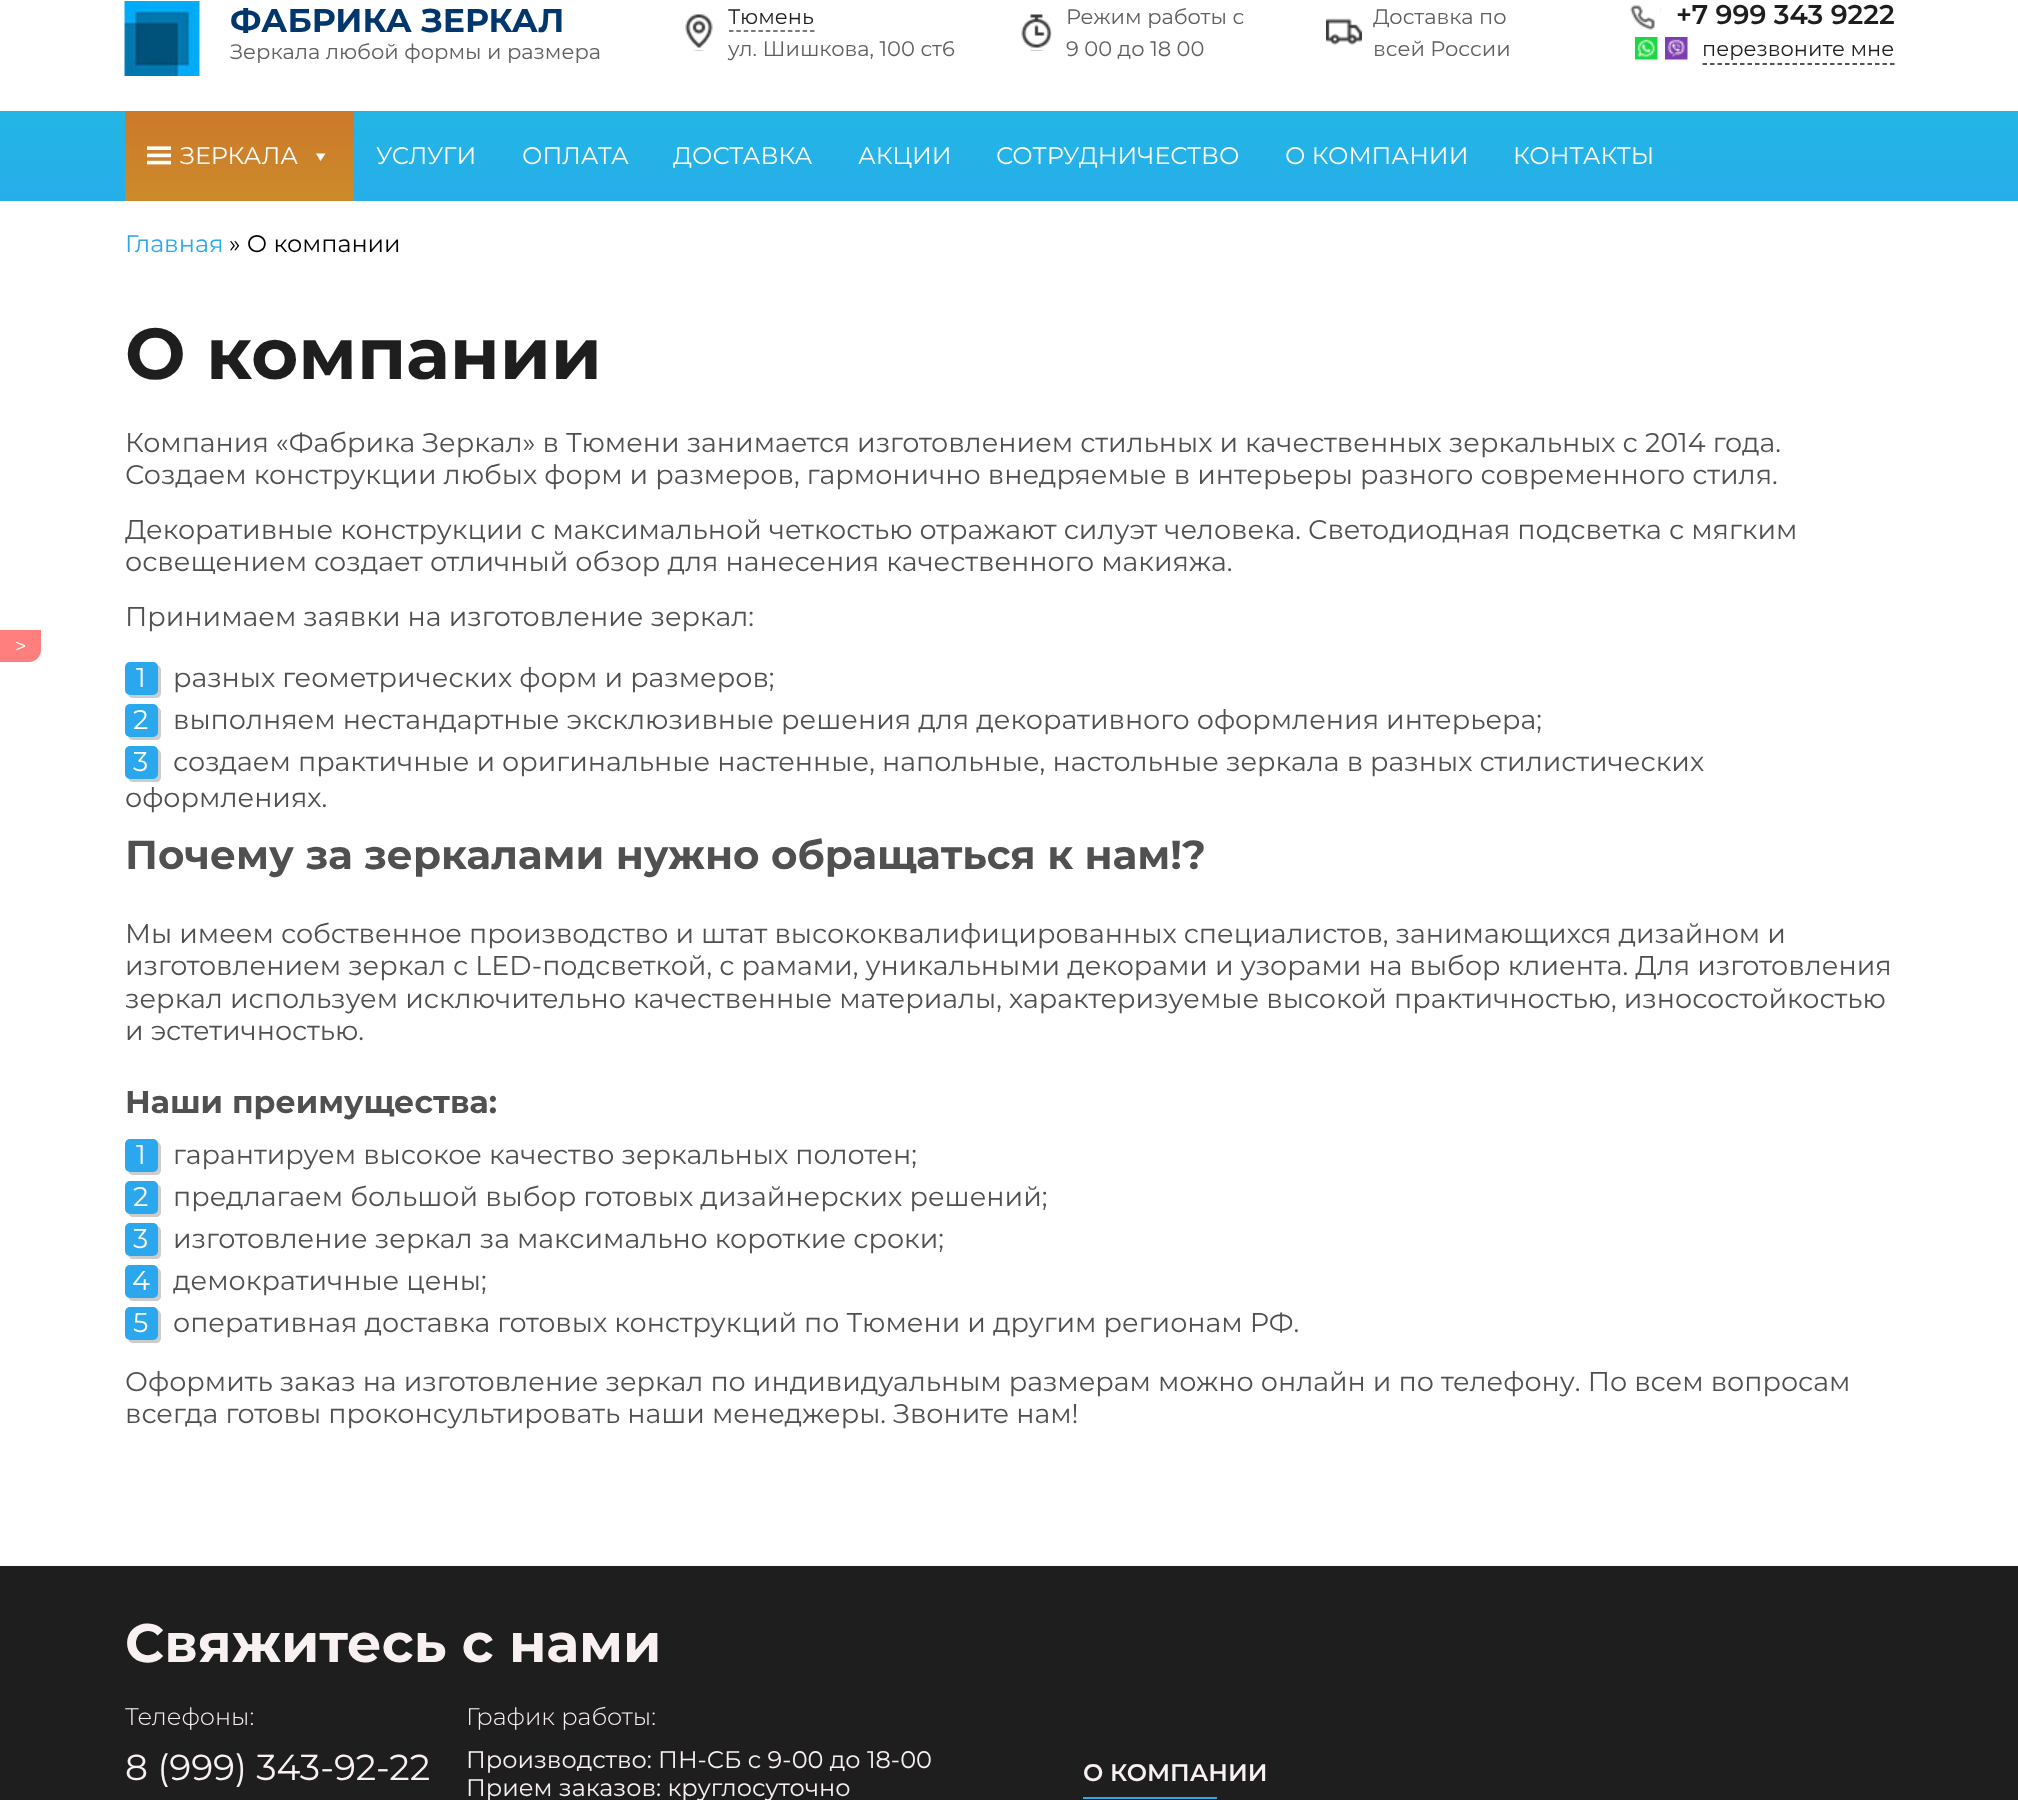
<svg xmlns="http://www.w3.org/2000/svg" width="2018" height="1800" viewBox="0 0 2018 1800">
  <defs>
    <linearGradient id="g1" gradientUnits="userSpaceOnUse" x1="1010" y1="111" x2="1010" y2="201"><stop offset="0" stop-color="rgb(34,182,229)"/><stop offset="1" stop-color="rgb(39,174,234)"/></linearGradient>
    <linearGradient id="g2" gradientUnits="userSpaceOnUse" x1="239" y1="111" x2="239" y2="201"><stop offset="0" stop-color="rgb(204,121,42)"/><stop offset="1" stop-color="rgb(204,139,42)"/></linearGradient>
  </defs>
  <rect width="100%" height="100%" fill="rgb(255,255,255)"/>
  <image x="124" y="1" width="76" height="75" href="pic1.png"/>
  <text x="230" y="32" font-family="Montserrat" font-size="33" font-weight="bold" fill="rgb(2,55,109)">ФАБРИКА ЗЕРКАЛ</text>
  <text x="230" y="59" font-family="Montserrat" font-size="21" fill="rgb(96,96,96)">Зеркала любой формы и размера</text>
  <image x="685" y="14" width="28" height="37" href="pic2.png"/>
  <text x="728" y="24" font-family="Montserrat" font-size="21" fill="rgb(30,30,30)">Тюмень</text>
  <path d="M729 31H814.5" fill="none" stroke="rgb(77,77,77)" stroke-width="1.5" stroke-dasharray="4.5 2.86"/>
  <text x="728" y="56" font-family="Montserrat" font-size="21" fill="rgb(96,96,96)">ул. Шишкова, 100 ст6</text>
  <image x="1021" y="14" width="31" height="37" href="pic3.png"/>
  <g font-family="Montserrat" font-size="21" fill="rgb(96,96,96)">
    <text>
      <tspan x="1066" y="24">Режим работы с</tspan>
      <tspan x="1066" y="56">9 00 до 18 00</tspan>
    </text>
  </g>
  <image x="1326" y="18" width="36" height="27" href="pic4.png"/>
  <g font-family="Montserrat" font-size="21" fill="rgb(96,96,96)">
    <text>
      <tspan x="1373" y="24">Доставка по</tspan>
      <tspan x="1373" y="56">всей России</tspan>
    </text>
  </g>
  <image x="1630" y="5" width="31" height="25" href="pic5.png"/>
  <text x="1676" y="24" font-family="Montserrat" font-size="27" font-weight="600" fill="rgb(30,30,30)">+7 999 343 9222</text>
  <image x="1635" y="37" width="23" height="23" href="pic6.png"/>
  <image x="1665" y="37" width="23" height="23" href="pic7.png"/>
  <text x="1702" y="56" font-family="Montserrat" font-size="21" fill="rgb(30,30,30)">перезвоните мне</text>
  <path d="M1702.5 64H1894.5" fill="none" stroke="rgb(30,30,30)" stroke-width="1.5" stroke-dasharray="4.5 3"/>
  <rect x="0" y="111" width="2018" height="90" fill="url(#g1)"/>
  <rect x="125" y="111" width="229" height="90" fill="url(#g2)"/>
  <image x="147" y="146" width="24" height="19" href="pic8.png"/>
  <text x="180" y="164" font-family="Montserrat" font-size="24" fill="rgb(255,255,255)">ЗЕРКАЛА</text>
  <path d="M325.5 153.5L320.5 161L316 153.5Z" fill="rgb(255,255,255)"/>
  <g font-family="Montserrat" font-size="24" fill="rgb(255,255,255)">
    <text x="376" y="164">УСЛУГИ</text>
    <text x="522" y="164">ОПЛАТА</text>
    <text x="673" y="164">ДОСТАВКА</text>
    <text x="858" y="164">АКЦИИ</text>
    <text x="996" y="164">СОТРУДНИЧЕСТВО</text>
    <text x="1285" y="164">О КОМПАНИИ</text>
    <text x="1513" y="164">КОНТАКТЫ</text>
  </g>
  <path d="M0 630H41V650C41 656.5 35.5 662 29 662H0Z" fill="rgb(255,126,126)"/>
  <text x="15" y="653" font-family="Montserrat" font-size="20" fill="rgb(255,255,255)">&gt;</text>
  <text x="125" y="252" font-family="Montserrat" font-size="24" fill="rgb(42,167,237)">Главная</text>
  <text x="229" y="252" font-family="Montserrat" font-size="24" fill="rgb(0,0,0)">» О компании</text>
  <text x="125" y="379" font-family="Montserrat" font-size="72" font-weight="bold" fill="rgb(30,30,30)">О компании</text>
  <g font-family="Montserrat" font-size="27" fill="rgb(80,80,80)">
    <text>
      <tspan x="125" y="452">Компания «Фабрика Зеркал» в Тюмени занимается изготовлением стильных и качественных зеркальных с 2014 года.</tspan>
      <tspan x="125" y="484">Создаем конструкции любых форм и размеров, гармонично внедряемые в интерьеры разного современного стиля.</tspan>
    </text>
    <text>
      <tspan x="125" y="539">Декоративные конструкции с максимальной четкостью отражают силуэт человека. Светодиодная подсветка с мягким</tspan>
      <tspan x="125" y="571">освещением создает отличный обзор для нанесения качественного макияжа.</tspan>
    </text>
    <text x="125" y="626">Принимаем заявки на изготовление зеркал:</text>
  </g>
  <path d="M128 694.5C129 696.5 130.5 698 133 698H156C159 698 161 696 161 693V670C161 667.5 159.5 666 157.5 665V682C157.5 695 158 694.5 145 694.5Z" fill="rgb(204,204,204)"/>
  <rect x="125" y="662" width="33" height="33" rx="5" fill="rgb(42,167,237)"/>
  <text x="136" y="687" font-family="Montserrat" font-size="27" fill="rgb(255,255,255)">1</text>
  <text x="173" y="687" font-family="Montserrat" font-size="27" fill="rgb(80,80,80)">разных геометрических форм и размеров;</text>
  <path d="M128 736.5C129 738.5 130.5 740 133 740H156C159 740 161 738 161 735V712C161 709.5 159.5 708 157.5 707V724C157.5 737 158 736.5 145 736.5Z" fill="rgb(204,204,204)"/>
  <rect x="125" y="704" width="33" height="33" rx="5" fill="rgb(42,167,237)"/>
  <text x="133" y="729" font-family="Montserrat" font-size="27" fill="rgb(255,255,255)">2</text>
  <text x="173" y="729" font-family="Montserrat" font-size="27" fill="rgb(80,80,80)">выполняем нестандартные эксклюзивные решения для декоративного оформления интерьера;</text>
  <path d="M128 778.5C129 780.5 130.5 782 133 782H156C159 782 161 780 161 777V754C161 751.5 159.5 750 157.5 749V766C157.5 779 158 778.5 145 778.5Z" fill="rgb(204,204,204)"/>
  <rect x="125" y="746" width="33" height="33" rx="5" fill="rgb(42,167,237)"/>
  <text x="133" y="771" font-family="Montserrat" font-size="27" fill="rgb(255,255,255)">3</text>
  <g font-family="Montserrat" font-size="27" fill="rgb(80,80,80)">
    <text x="173" y="771">создаем практичные и оригинальные настенные, напольные, настольные зеркала в разных стилистических</text>
    <text x="125" y="807">оформлениях.</text>
  </g>
  <text x="125" y="869" font-family="Montserrat" font-size="40.5" font-weight="bold" fill="rgb(80,80,80)">Почему за зеркалами нужно обращаться к нам!?</text>
  <g font-family="Montserrat" font-size="27" fill="rgb(80,80,80)">
    <text>
      <tspan x="125" y="943">Мы имеем собственное производство и штат высококвалифицированных специалистов, занимающихся дизайном и</tspan>
      <tspan x="125" y="975">изготовлением зеркал с LED-подсветкой, с рамами, уникальными декорами и узорами на выбор клиента. Для изготовления</tspan>
      <tspan x="125" y="1008">зеркал используем исключительно качественные материалы, характеризуемые высокой практичностью, износостойкостью</tspan>
      <tspan x="125" y="1040">и эстетичностью.</tspan>
    </text>
  </g>
  <text x="125" y="1113" font-family="Montserrat" font-size="31.6" font-weight="bold" fill="rgb(80,80,80)">Наши преимущества:</text>
  <path d="M128 1171.5C129 1173.5 130.5 1175 133 1175H156C159 1175 161 1173 161 1170V1147C161 1144.5 159.5 1143 157.5 1142V1159C157.5 1172 158 1171.5 145 1171.5Z" fill="rgb(204,204,204)"/>
  <rect x="125" y="1139" width="33" height="33" rx="5" fill="rgb(42,167,237)"/>
  <text x="136" y="1164" font-family="Montserrat" font-size="27" fill="rgb(255,255,255)">1</text>
  <text x="173" y="1164" font-family="Montserrat" font-size="27" fill="rgb(80,80,80)">гарантируем высокое качество зеркальных полотен;</text>
  <path d="M128 1213.5C129 1215.5 130.5 1217 133 1217H156C159 1217 161 1215 161 1212V1189C161 1186.5 159.5 1185 157.5 1184V1201C157.5 1214 158 1213.5 145 1213.5Z" fill="rgb(204,204,204)"/>
  <rect x="125" y="1181" width="33" height="33" rx="5" fill="rgb(42,167,237)"/>
  <text x="133" y="1206" font-family="Montserrat" font-size="27" fill="rgb(255,255,255)">2</text>
  <text x="173" y="1206" font-family="Montserrat" font-size="27" fill="rgb(80,80,80)">предлагаем большой выбор готовых дизайнерских решений;</text>
  <path d="M128 1255.5C129 1257.5 130.5 1259 133 1259H156C159 1259 161 1257 161 1254V1231C161 1228.5 159.5 1227 157.5 1226V1243C157.5 1256 158 1255.5 145 1255.5Z" fill="rgb(204,204,204)"/>
  <rect x="125" y="1223" width="33" height="33" rx="5" fill="rgb(42,167,237)"/>
  <text x="133" y="1248" font-family="Montserrat" font-size="27" fill="rgb(255,255,255)">3</text>
  <text x="173" y="1248" font-family="Montserrat" font-size="27" fill="rgb(80,80,80)">изготовление зеркал за максимально короткие сроки;</text>
  <path d="M128 1297.5C129 1299.5 130.5 1301 133 1301H156C159 1301 161 1299 161 1296V1273C161 1270.5 159.5 1269 157.5 1268V1285C157.5 1298 158 1297.5 145 1297.5Z" fill="rgb(204,204,204)"/>
  <rect x="125" y="1265" width="33" height="33" rx="5" fill="rgb(42,167,237)"/>
  <text x="132" y="1290" font-family="Montserrat" font-size="27" fill="rgb(255,255,255)">4</text>
  <text x="173" y="1290" font-family="Montserrat" font-size="27" fill="rgb(80,80,80)">демократичные цены;</text>
  <path d="M128 1339.5C129 1341.5 130.5 1343 133 1343H156C159 1343 161 1341 161 1338V1315C161 1312.5 159.5 1311 157.5 1310V1327C157.5 1340 158 1339.5 145 1339.5Z" fill="rgb(204,204,204)"/>
  <rect x="125" y="1307" width="33" height="33" rx="5" fill="rgb(42,167,237)"/>
  <text x="133" y="1332" font-family="Montserrat" font-size="27" fill="rgb(255,255,255)">5</text>
  <g font-family="Montserrat" font-size="27" fill="rgb(80,80,80)">
    <text x="173" y="1332">оперативная доставка готовых конструкций по Тюмени и другим регионам РФ.</text>
    <text>
      <tspan x="125" y="1391">Оформить заказ на изготовление зеркал по индивидуальным размерам можно онлайн и по телефону. По всем вопросам</tspan>
      <tspan x="125" y="1423">всегда готовы проконсультировать наши менеджеры. Звоните нам!</tspan>
    </text>
  </g>
  <rect x="0" y="1566" width="2018" height="234" fill="rgb(30,30,30)"/>
  <text x="125" y="1662" font-family="Montserrat" font-size="54" font-weight="bold" fill="rgb(249,241,241)">Свяжитесь с нами</text>
  <text x="125" y="1725" font-family="Montserrat" font-size="24" font-weight="300" fill="rgb(249,241,241)">Телефоны:</text>
  <text x="125" y="1780" font-family="Montserrat" font-size="36" fill="rgb(249,241,241)">8 (999) 343-92-22</text>
  <text x="466" y="1725" font-family="Montserrat" font-size="24" font-weight="300" fill="rgb(249,241,241)">График работы:</text>
  <g font-family="Montserrat" font-size="24" fill="rgb(249,241,241)">
    <text>
      <tspan x="466" y="1768">Производство: ПН-СБ c 9-00 до 18-00</tspan>
      <tspan x="466" y="1796">Прием заказов: круглосуточно</tspan>
    </text>
  </g>
  <text x="1083" y="1781" font-family="Montserrat" font-size="24" font-weight="600" fill="rgb(249,241,241)">О КОМПАНИИ</text>
  <rect x="1083" y="1797" width="134" height="2" fill="rgb(42,167,237)"/>
</svg>
